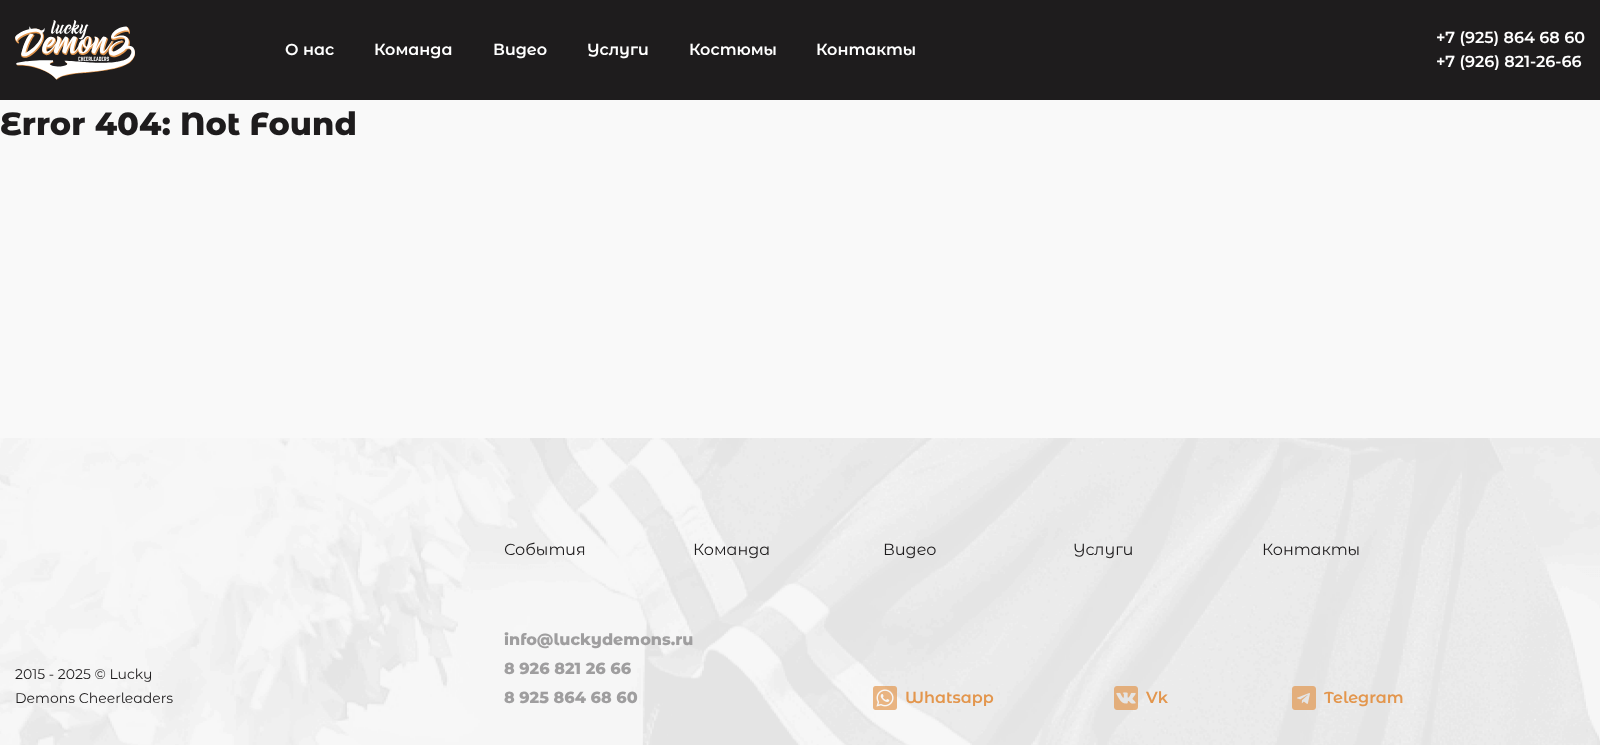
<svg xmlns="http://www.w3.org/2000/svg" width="1600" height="745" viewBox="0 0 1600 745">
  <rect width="100%" height="100%" fill="rgb(249,249,249)"/>
  <rect x="0" y="0" width="1600" height="100" fill="rgb(30,28,29)"/>
  <image x="15" y="20" width="120" height="60" href="pic1.png"/>
  <g font-family="Montserrat Alternates" font-size="16" font-weight="600" fill="rgb(255,255,255)">
    <text x="285" y="55">О нас</text>
    <text x="374" y="55">Команда</text>
    <text x="493" y="55">Видео</text>
    <text x="587" y="55">Услуги</text>
    <text x="689" y="55">Костюмы</text>
    <text x="816" y="55">Контакты</text>
    <text>
      <tspan x="1436" y="43">+7 (925) 864 68 60</tspan>
      <tspan x="1436" y="67">+7 (926) 821-26-66</tspan>
    </text>
  </g>
  <text x="0" y="135" font-family="Montserrat Alternates" font-size="32" font-weight="800" fill="rgb(30,28,29)">Error 404: Not Found</text>
  <image x="0" y="438" width="1600" height="307" href="pic2.png"/>
  <g font-family="Montserrat Alternates" font-size="14" fill="rgb(30,28,29)">
    <text>
      <tspan x="15" y="679">2015 - 2025 © Lucky</tspan>
      <tspan x="15" y="703">Demons Cheerleaders</tspan>
    </text>
  </g>
  <g font-family="Montserrat Alternates" font-size="16" fill="rgb(30,28,29)">
    <text x="504" y="555">События</text>
    <text x="693" y="555">Команда</text>
    <text x="883" y="555">Видео</text>
    <text x="1073" y="555">Услуги</text>
    <text x="1262" y="555">Контакты</text>
  </g>
  <g font-family="Montserrat Alternates" font-size="16" font-weight="800" fill="rgb(159,158,159)">
    <text>
      <tspan x="504" y="645">info@luckydemons.ru</tspan>
      <tspan x="504" y="674">8 926 821 26 66</tspan>
      <tspan x="504" y="703">8 925 864 68 60</tspan>
    </text>
  </g>
  <image x="873" y="686" width="24" height="24" href="pic3.png"/>
  <text x="905" y="703" font-family="Montserrat Alternates" font-size="16" font-weight="600" fill="rgb(227,150,77)">Whatsapp</text>
  <image x="1114" y="686" width="24" height="24" href="pic4.png"/>
  <text x="1146" y="703" font-family="Montserrat Alternates" font-size="16" font-weight="600" fill="rgb(227,150,77)">Vk</text>
  <image x="1292" y="686" width="24" height="24" href="pic5.png"/>
  <text x="1324" y="703" font-family="Montserrat Alternates" font-size="16" font-weight="600" fill="rgb(227,150,77)">Telegram</text>
</svg>
